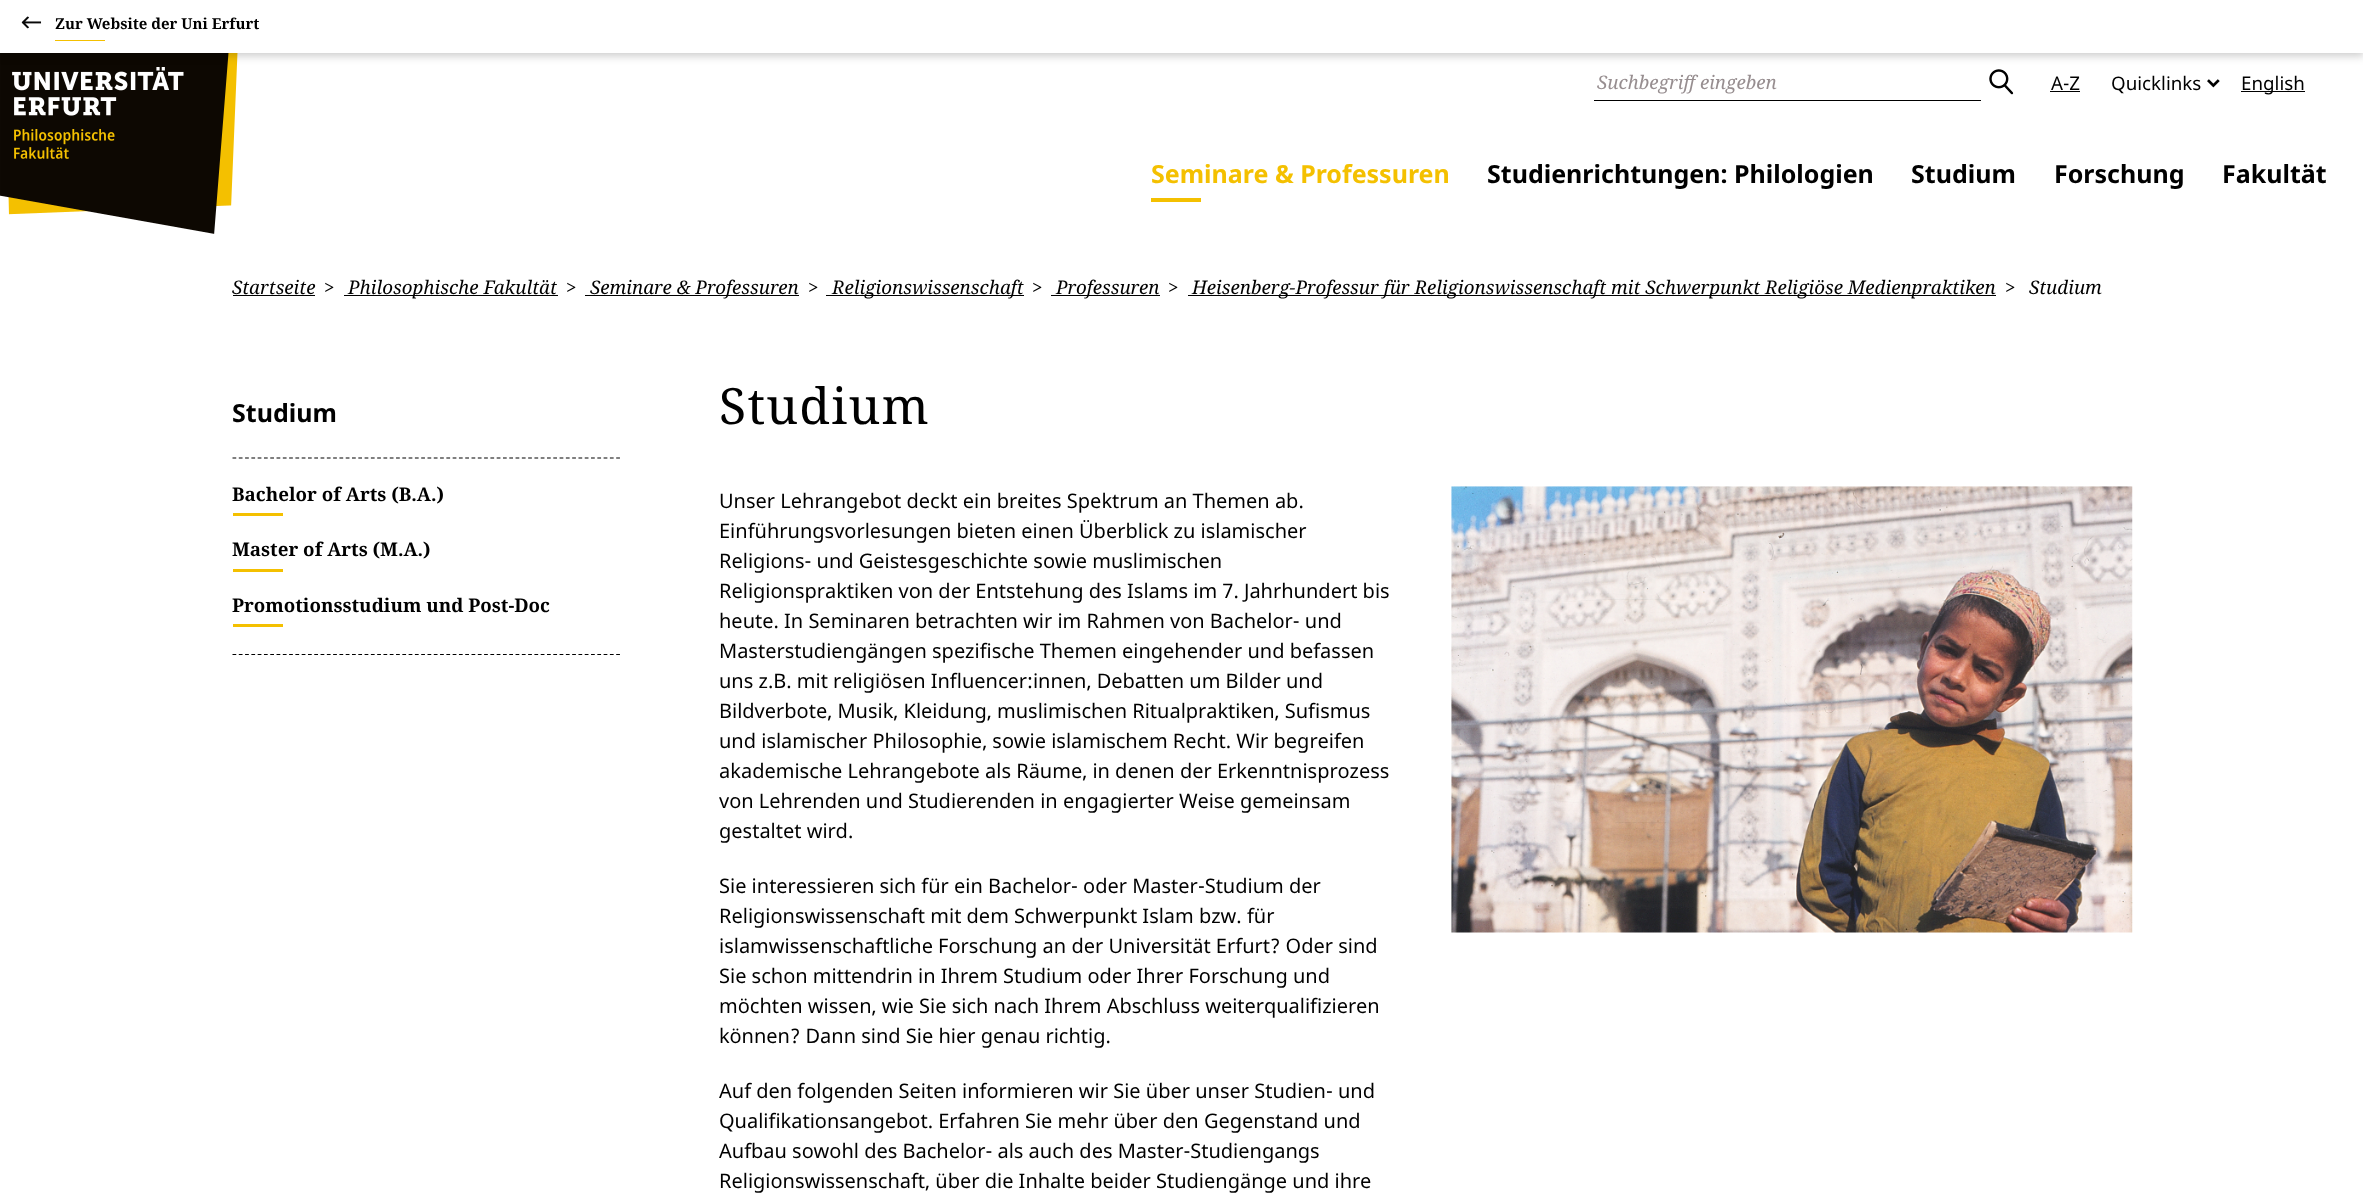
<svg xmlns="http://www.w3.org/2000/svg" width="2363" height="1195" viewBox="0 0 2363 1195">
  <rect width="100%" height="100%" fill="rgb(255,255,255)"/>
  <image x="0" y="53" width="238" height="181" href="pic2.png"/>
  <rect x="0" y="4" width="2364" height="52" fill="rgba(0,0,0,0.2)" filter="blur(4px)"/>
  <rect x="0" y="0" width="2363" height="53" fill="rgb(255,255,255)"/>
  <image x="21" y="16" width="21" height="13" href="pic1.png"/>
  <text x="55" y="29" font-family="Noto Serif" font-size="15" font-weight="bold" fill="rgb(0,0,0)">Zur Website der Uni Erfurt</text>
  <rect x="55" y="40" width="50" height="1" fill="rgb(244,192,0)"/>
  <rect x="1594" y="100" width="387" height="1" fill="rgb(0,0,0)"/>
  <text x="1597" y="89" font-family="Noto Serif" font-size="18.75" font-style="italic" fill="rgb(151,142,144)">Suchbegriff eingeben</text>
  <image x="1989" y="69" width="25" height="26" href="pic3.png"/>
  <text x="2051" y="90" font-family="Noto Sans" font-size="18.75" fill="rgb(0,0,0)">A-Z</text>
  <rect x="2050" y="91" width="30" height="1" fill="rgb(0,0,0)"/>
  <text x="2111" y="90" font-family="Noto Sans" font-size="18.75" fill="rgb(0,0,0)">Quicklinks</text>
  <image x="2207" y="79" width="13" height="9" href="pic4.png"/>
  <rect x="2241" y="91" width="64" height="1" fill="rgb(0,0,0)"/>
  <text x="2241" y="90" font-family="Noto Sans" font-size="18.75" fill="rgb(0,0,0)">English</text>
  <text x="1151" y="183" font-family="Noto Sans" font-size="25" font-weight="bold" fill="rgb(244,192,0)">Seminare &amp; Professuren</text>
  <rect x="1151" y="198" width="50" height="4" fill="rgb(244,192,0)"/>
  <g font-family="Noto Sans" font-size="25" font-weight="bold" fill="rgb(0,0,0)">
    <text x="1487" y="183">Studienrichtungen: Philologien</text>
    <text x="1911" y="183">Studium</text>
    <text x="2054" y="183">Forschung</text>
    <text x="2222" y="183">Fakultät</text>
  </g>
  <text x="232" y="294" font-family="Noto Serif" font-size="18.75" font-style="italic" fill="rgb(0,0,0)">Startseite</text>
  <rect x="233" y="295" width="82" height="1" fill="rgb(0,0,0)"/>
  <text x="324" y="294" font-family="Noto Serif" font-size="18.75" font-style="italic" fill="rgb(0,0,0)">&gt;</text>
  <rect x="344" y="295" width="214" height="1" fill="rgb(0,0,0)"/>
  <g font-family="Noto Serif" font-size="18.75" font-style="italic" fill="rgb(0,0,0)">
    <text x="348" y="294">Philosophische Fakultät</text>
    <text x="566" y="294">&gt;</text>
  </g>
  <rect x="585" y="295" width="214" height="1" fill="rgb(0,0,0)"/>
  <g font-family="Noto Serif" font-size="18.75" font-style="italic" fill="rgb(0,0,0)">
    <text x="590" y="294">Seminare &amp; Professuren</text>
    <text x="808" y="294">&gt;</text>
  </g>
  <rect x="826" y="295" width="198" height="1" fill="rgb(0,0,0)"/>
  <g font-family="Noto Serif" font-size="18.75" font-style="italic" fill="rgb(0,0,0)">
    <text x="832" y="294">Religionswissenschaft</text>
    <text x="1032" y="294">&gt;</text>
  </g>
  <rect x="1051" y="295" width="109" height="1" fill="rgb(0,0,0)"/>
  <g font-family="Noto Serif" font-size="18.75" font-style="italic" fill="rgb(0,0,0)">
    <text x="1056" y="294">Professuren</text>
    <text x="1168" y="294">&gt;</text>
  </g>
  <rect x="1188" y="295" width="808" height="1" fill="rgb(0,0,0)"/>
  <g font-family="Noto Serif" font-size="18.75" font-style="italic" fill="rgb(0,0,0)">
    <text x="1192" y="294">Heisenberg-Professur für Religionswissenschaft mit Schwerpunkt Religiöse Medienpraktiken</text>
    <text x="2005" y="294">&gt;</text>
    <text x="2029" y="294">Studium</text>
  </g>
  <text x="232" y="422" font-family="Noto Sans" font-size="25" font-weight="bold" fill="rgb(0,0,0)">Studium</text>
  <path d="M232.5 458H620" fill="none" stroke="rgb(0,0,0)" stroke-width="1.2" stroke-dasharray="3.75 2.54"/>
  <path d="M232.5 654.5H620" fill="none" stroke="rgb(0,0,0)" stroke-width="1.2" stroke-dasharray="3.75 2.54"/>
  <text x="232" y="501" font-family="Noto Serif" font-size="18.75" font-weight="bold" fill="rgb(0,0,0)">Bachelor of Arts (B.A.)</text>
  <rect x="233" y="513" width="50" height="3" fill="rgb(244,192,0)"/>
  <text x="232" y="556" font-family="Noto Serif" font-size="18.75" font-weight="bold" fill="rgb(0,0,0)">Master of Arts (M.A.)</text>
  <rect x="233" y="569" width="50" height="3" fill="rgb(244,192,0)"/>
  <text x="232" y="612" font-family="Noto Serif" font-size="18.75" font-weight="bold" fill="rgb(0,0,0)">Promotionsstudium und Post-Doc</text>
  <rect x="233" y="624" width="50" height="3" fill="rgb(244,192,0)"/>
  <text x="719" y="424" font-family="Noto Serif" font-size="50" letter-spacing="1.25" fill="rgb(0,0,0)">Studium</text>
  <g font-family="Noto Sans" font-size="20" fill="rgb(0,0,0)">
    <text>
      <tspan x="719" y="508">Unser Lehrangebot deckt ein breites Spektrum an Themen ab.</tspan>
      <tspan x="719" y="538">Einführungsvorlesungen bieten einen Überblick zu islamischer</tspan>
      <tspan x="719" y="568">Religions- und Geistesgeschichte sowie muslimischen</tspan>
      <tspan x="719" y="598">Religionspraktiken von der Entstehung des Islams im 7. Jahrhundert bis</tspan>
      <tspan x="719" y="628">heute. In Seminaren betrachten wir im Rahmen von Bachelor- und</tspan>
      <tspan x="719" y="658">Masterstudiengängen spezifische Themen eingehender und befassen</tspan>
      <tspan x="719" y="688">uns z.B. mit religiösen Influencer:innen, Debatten um Bilder und</tspan>
      <tspan x="719" y="718">Bildverbote, Musik, Kleidung, muslimischen Ritualpraktiken, Sufismus</tspan>
      <tspan x="719" y="748">und islamischer Philosophie, sowie islamischem Recht. Wir begreifen</tspan>
      <tspan x="719" y="778">akademische Lehrangebote als Räume, in denen der Erkenntnisprozess</tspan>
      <tspan x="719" y="808">von Lehrenden und Studierenden in engagierter Weise gemeinsam</tspan>
      <tspan x="719" y="838">gestaltet wird.</tspan>
    </text>
    <text>
      <tspan x="719" y="893">Sie interessieren sich für ein Bachelor- oder Master-Studium der</tspan>
      <tspan x="719" y="923">Religionswissenschaft mit dem Schwerpunkt Islam bzw. für</tspan>
      <tspan x="719" y="953">islamwissenschaftliche Forschung an der Universität Erfurt? Oder sind</tspan>
      <tspan x="719" y="983">Sie schon mittendrin in Ihrem Studium oder Ihrer Forschung und</tspan>
      <tspan x="719" y="1013">möchten wissen, wie Sie sich nach Ihrem Abschluss weiterqualifizieren</tspan>
      <tspan x="719" y="1043">können? Dann sind Sie hier genau richtig.</tspan>
    </text>
    <text>
      <tspan x="719" y="1098">Auf den folgenden Seiten informieren wir Sie über unser Studien- und</tspan>
      <tspan x="719" y="1128">Qualifikationsangebot. Erfahren Sie mehr über den Gegenstand und</tspan>
      <tspan x="719" y="1158">Aufbau sowohl des Bachelor- als auch des Master-Studiengangs</tspan>
      <tspan x="719" y="1188">Religionswissenschaft, über die Inhalte beider Studiengänge und ihre</tspan>
    </text>
  </g>
  <image x="1451" y="486" width="682" height="447" href="pic5.png"/>
</svg>
